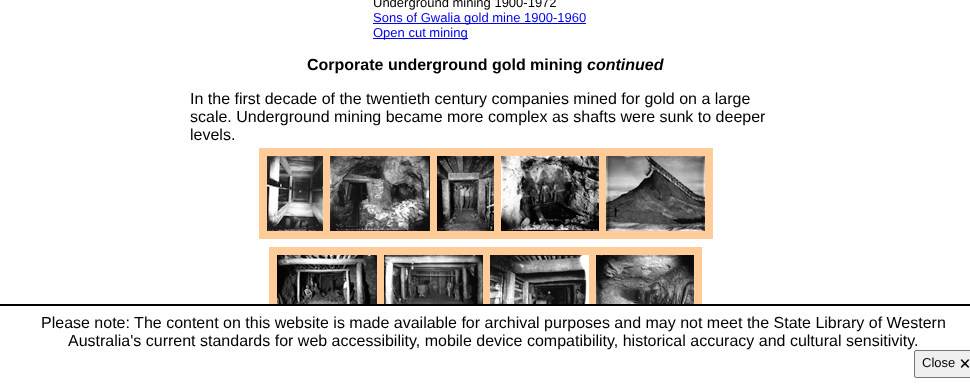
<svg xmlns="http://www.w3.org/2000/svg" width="970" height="386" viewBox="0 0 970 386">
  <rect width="100%" height="100%" fill="rgb(255,255,255)"/>
  <text x="373" y="7" font-family="Liberation Sans" font-size="13" fill="rgb(0,0,0)">Underground mining 1900-1972</text>
  <rect x="373" y="23" width="213" height="1" fill="rgb(0,0,238)"/>
  <text x="373" y="22" font-family="Liberation Sans" font-size="13" fill="rgb(0,0,238)">Sons of Gwalia gold mine 1900-1960</text>
  <rect x="373" y="38" width="95" height="1" fill="rgb(0,0,238)"/>
  <text x="373" y="37" font-family="Liberation Sans" font-size="13" fill="rgb(0,0,238)">Open cut mining</text>
  <text x="307" y="70" font-family="Liberation Sans" font-size="16" font-weight="bold" fill="rgb(0,0,0)">Corporate underground gold mining</text>
  <text x="587" y="70" font-family="Liberation Sans" font-size="16" font-weight="bold" font-style="italic" fill="rgb(0,0,0)">continued</text>
  <g font-family="Liberation Sans" font-size="16" fill="rgb(0,0,0)">
    <text>
      <tspan x="190" y="104">In the first decade of the twentieth century companies mined for gold on a large</tspan>
      <tspan x="190" y="122">scale. Underground mining became more complex as shafts were sunk to deeper</tspan>
      <tspan x="190" y="140">levels.</tspan>
    </text>
  </g>
  <rect x="259" y="148" width="454" height="91" fill="rgb(255,204,153)"/>
  <image x="267" y="156" width="56" height="75" href="pic1.png"/>
  <image x="330" y="156" width="100" height="75" href="pic2.png"/>
  <image x="437" y="156" width="57" height="75" href="pic3.png"/>
  <image x="501" y="156" width="98" height="75" href="pic4.png"/>
  <image x="606" y="156" width="99" height="75" href="pic5.png"/>
  <rect x="269" y="247" width="433" height="57" fill="rgb(255,204,153)"/>
  <image x="277" y="255" width="100" height="49" href="pic6.png"/>
  <image x="384" y="255" width="99" height="49" href="pic7.png"/>
  <image x="490" y="255" width="99" height="49" href="pic8.png"/>
  <image x="596" y="255" width="98" height="49" href="pic9.png"/>
  <rect x="0" y="304" width="970" height="2" fill="rgb(0,0,0)"/>
  <g font-family="Liberation Sans" font-size="16" fill="rgb(0,0,0)">
    <text x="41" y="328">Please note: The content on this website is made available for archival purposes and may not meet the State Library of Western</text>
    <text x="68" y="346">Australia's current standards for web accessibility, mobile device compatibility, historical accuracy and cultural sensitivity.</text>
  </g>
  <rect x="914.5" y="350.5" width="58" height="27" rx="1.5" fill="rgb(239,239,239)" stroke="rgb(118,118,118)"/>
  <text x="922" y="367" font-family="Liberation Sans" font-size="13" fill="rgb(0,0,0)">Close</text>
  <text x="960" y="367" font-family="'Noto Sans Symbols 2'" font-size="13" fill="rgb(0,0,0)">🗙</text>
</svg>
